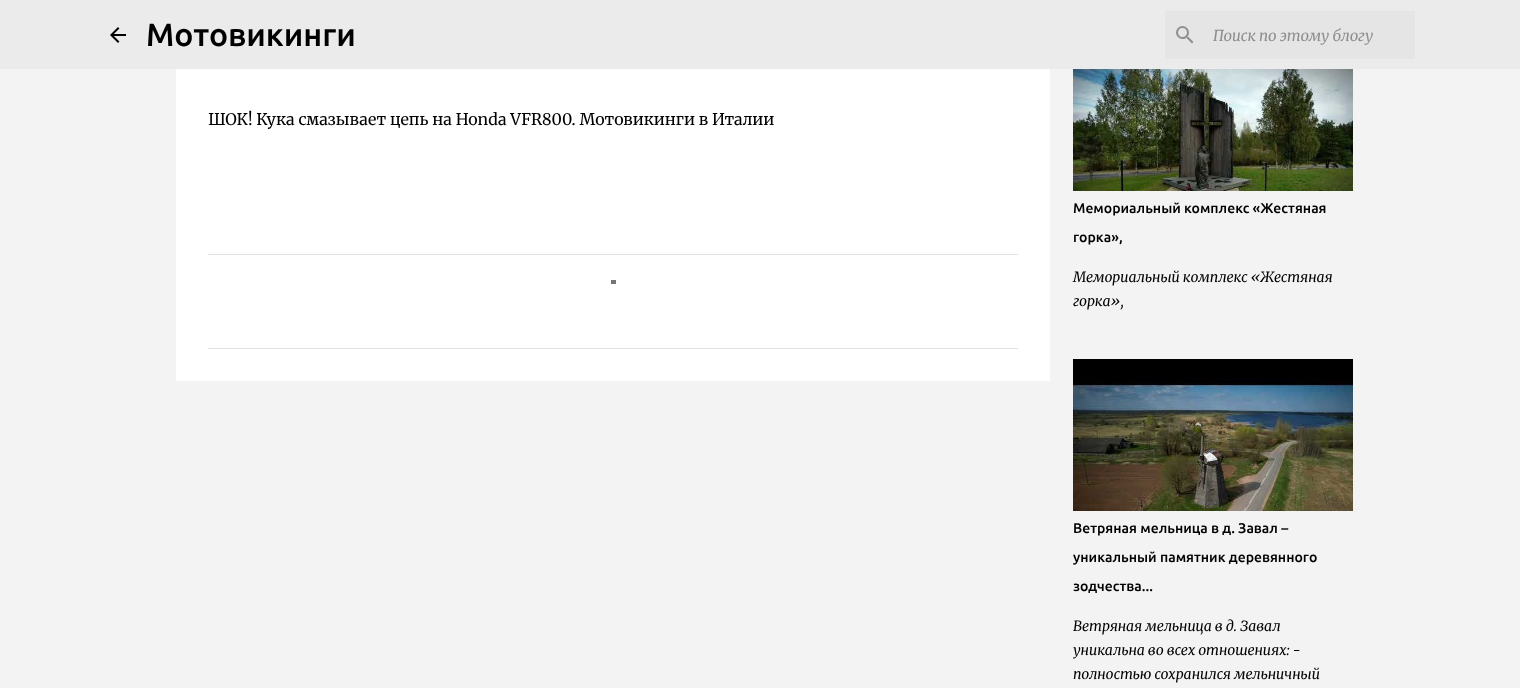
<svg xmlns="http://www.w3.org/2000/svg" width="1520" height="688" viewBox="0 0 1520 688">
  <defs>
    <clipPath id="clip1"><rect x="1073" y="0" width="280" height="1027"/></clipPath>
    <clipPath id="clip2"><rect x="1073" y="614" width="280" height="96"/></clipPath>
  </defs>
  <rect width="100%" height="100%" fill="rgb(243,243,243)"/>
  <rect x="0" y="0" width="1520" height="69" fill="rgb(235,235,235)"/>
  <image x="110" y="27" width="16" height="16" href="pic1.png"/>
  <text x="146" y="46" font-family="Ubuntu" font-size="32" font-weight="500" fill="rgb(0,0,0)">Мотовикинги</text>
  <rect x="1165" y="11" width="250" height="48" fill="rgb(229,229,229)"/>
  <image x="1176" y="26" width="18" height="18" href="pic2.png"/>
  <text x="1213" y="41" font-family="Merriweather" font-size="15" font-style="italic" fill="rgb(142,142,142)">Поиск по этому блогу</text>
  <rect x="176" y="69" width="874" height="312" fill="rgb(255,255,255)"/>
  <rect x="208" y="254" width="810" height="1" fill="rgb(225,225,225)"/>
  <rect x="208" y="348" width="810" height="1" fill="rgb(225,225,225)"/>
  <text x="208" y="125" font-family="Merriweather" font-size="16" fill="rgb(0,0,0)">ШОК! Кука смазывает цепь на Honda VFR800. Мотовикинги в Италии</text>
  <image x="1073" y="69" width="280" height="122" href="pic3.png"/>
  <g font-family="Ubuntu" font-size="14" font-weight="500" fill="rgb(0,0,0)">
    <text x="1073" y="213">Мемориальный комплекс «Жестяная</text>
    <text x="1073" y="242">горка»,</text>
  </g>
  <g font-family="Merriweather" font-size="14" font-style="italic" fill="rgb(0,0,0)">
    <text>
      <tspan x="1073" y="282">Мемориальный комплекс «Жестяная</tspan>
      <tspan x="1073" y="306">горка»,</tspan>
    </text>
  </g>
  <image x="1073" y="359" width="280" height="152" href="pic4.png"/>
  <text x="1073" y="533" font-family="Ubuntu" font-size="14" font-weight="500" fill="rgb(0,0,0)">Ветряная мельница в д. Завал –</text>
  <g clip-path="url(#clip1)">
    <text x="1073" y="562" font-family="Ubuntu" font-size="14" font-weight="500" fill="rgb(0,0,0)">уникальный памятник деревянного</text>
  </g>
  <text x="1073" y="591" font-family="Ubuntu" font-size="14" font-weight="500" fill="rgb(0,0,0)">зодчества...</text>
  <text x="1073" y="631" font-family="Merriweather" font-size="14" font-style="italic" fill="rgb(0,0,0)">Ветряная мельница в д. Завал</text>
  <g clip-path="url(#clip2)">
    <text x="1073" y="655" font-family="Merriweather" font-size="14" font-style="italic" fill="rgb(0,0,0)">уникальна во всех отношениях: -</text>
  </g>
  <text x="1073" y="679" font-family="Merriweather" font-size="14" font-style="italic" fill="rgb(0,0,0)">полностью сохранился мельничный</text>
  <rect x="611" y="280" width="5" height="4" fill="rgb(117,117,117)"/>
</svg>
